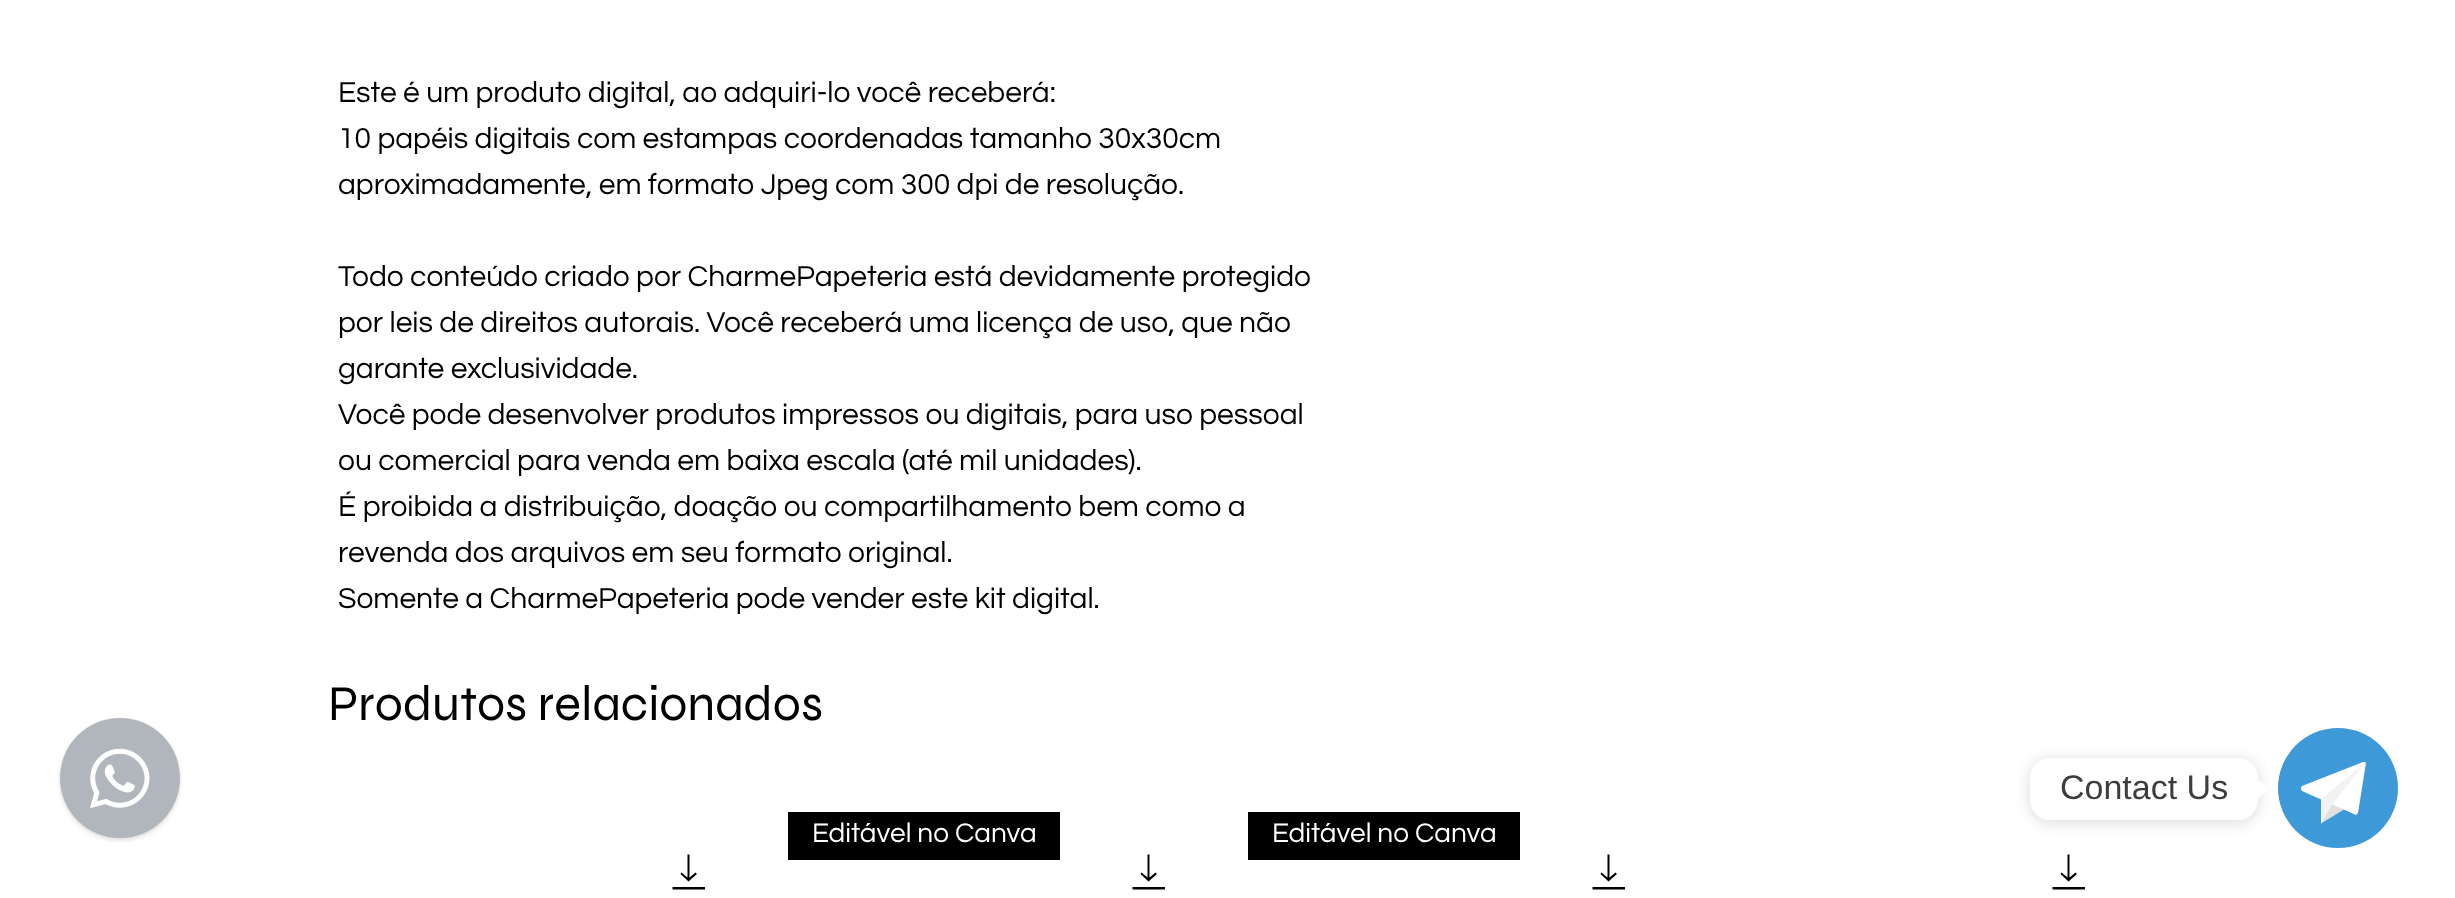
<svg xmlns="http://www.w3.org/2000/svg" width="2455" height="898" viewBox="0 0 2455 898">
  <rect width="100%" height="100%" fill="rgb(255,255,255)"/>
  <rect x="60" y="720" width="120" height="120" rx="60" fill="rgba(0,0,0,0.15)" filter="blur(2px)"/>
  <circle cx="120" cy="778" r="60" fill="rgb(176,182,187)"/>
  <image x="90" y="748" width="60" height="61" href="pic1.png"/>
  <g font-family="Questrial" font-size="30" fill="rgb(0,0,0)">
    <text>
      <tspan x="338" y="102">Este é um produto digital, ao adquiri-lo você receberá:</tspan>
      <tspan x="338" y="148">10 papéis digitais com estampas coordenadas tamanho 30x30cm</tspan>
      <tspan x="338" y="194">aproximadamente, em formato Jpeg com 300 dpi de resolução.</tspan>
    </text>
    <text>
      <tspan x="338" y="286">Todo conteúdo criado por CharmePapeteria está devidamente protegido</tspan>
      <tspan x="338" y="332">por leis de direitos autorais. Você receberá uma licença de uso, que não</tspan>
      <tspan x="338" y="378">garante exclusividade.</tspan>
      <tspan x="338" y="424">Você pode desenvolver produtos impressos ou digitais, para uso pessoal</tspan>
      <tspan x="338" y="470">ou comercial para venda em baixa escala (até mil unidades).</tspan>
      <tspan x="338" y="516">É proibida a distribuição, doação ou compartilhamento bem como a</tspan>
      <tspan x="338" y="562">revenda dos arquivos em seu formato original.</tspan>
      <tspan x="338" y="608">Somente a CharmePapeteria pode vender este kit digital.</tspan>
    </text>
  </g>
  <text x="328" y="720" font-family="Syne" font-size="50" fill="rgb(0,0,0)">Produtos relacionados</text>
  <rect x="788" y="812" width="272" height="48" fill="rgb(0,0,0)"/>
  <text x="812" y="842" font-family="Questrial" font-size="28" fill="rgb(255,255,255)">Editável no Canva</text>
  <path d="M1155.5 872.5L1149.5 877.5V854.5H1147.5V877.5L1141.5 872.5L1140.5 874L1148.5 881.5L1157 874ZM1132.5 887H1165V889.5H1132.5Z" fill="rgb(0,0,0)"/>
  <rect x="1248" y="812" width="272" height="48" fill="rgb(0,0,0)"/>
  <text x="1272" y="842" font-family="Questrial" font-size="28" fill="rgb(255,255,255)">Editável no Canva</text>
  <path d="M1615.5 872.5L1609.5 877.5V854.5H1607.5V877.5L1601.5 872.5L1600.5 874L1608.5 881.5L1617 874ZM1592.5 887H1625V889.5H1592.5Z" fill="rgb(0,0,0)"/>
  <path d="M695.5 872.5L689.5 877.5V854.5H687.5V877.5L681.5 872.5L680.5 874L688.5 881.5L697 874ZM672.5 887H705V889.5H672.5Z" fill="rgb(0,0,0)"/>
  <path d="M2075.5 872.5L2069.5 877.5V854.5H2067.5V877.5L2061.5 872.5L2060.5 874L2068.5 881.5L2077 874ZM2052.5 887H2085V889.5H2052.5Z" fill="rgb(0,0,0)"/>
  <circle cx="2338" cy="788" r="60" fill="rgb(62,153,216)"/>
  <rect x="2030" y="760" width="228" height="62" rx="20" fill="rgba(0,0,0,0.15)" filter="blur(7.5px)"/>
  <rect x="2030" y="758" width="228" height="62" rx="20" fill="rgb(255,255,255)"/>
  <text x="2060" y="799" font-family="Liberation Sans" font-size="34" fill="rgb(61,61,61)">Contact Us</text>
  <path d="M2258 799V779L2268 789Z" fill="rgb(255,255,255)"/>
  <path d="M2332 803.5L2321 823.5L2344 809.5Z" fill="rgb(224,224,224)"/>
  <path d="M2365 762H2363L2302 786C2301 787 2301 788 2301 788C2301 789 2301 790 2302 791L2356 815L2358 813L2366 763Z" fill="rgb(255,255,255)"/>
  <path d="M2364 764L2321 799V824L2332 805Z" fill="rgb(242,242,242)"/>
</svg>
